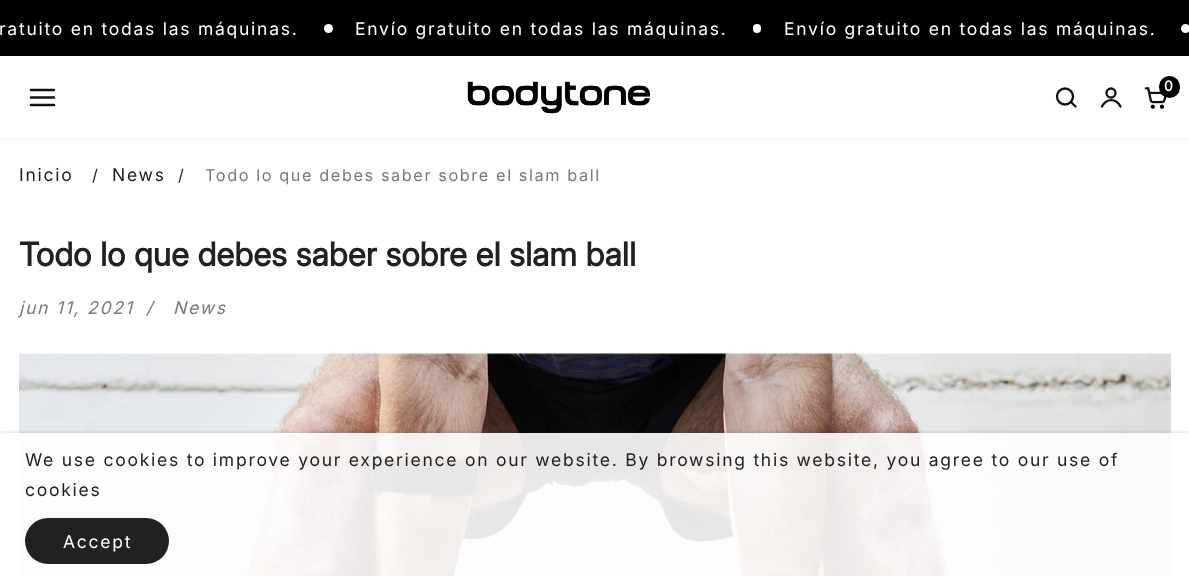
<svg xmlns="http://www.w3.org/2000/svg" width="1189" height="576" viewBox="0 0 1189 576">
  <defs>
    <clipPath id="clip1"><rect x="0" y="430" width="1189" height="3"/></clipPath>
  </defs>
  <rect width="100%" height="100%" fill="rgb(255,255,255)"/>
  <rect x="0" y="0" width="1189" height="56" fill="rgb(0,0,0)"/>
  <text x="-1" y="35" font-family="Inter" font-size="17.5" letter-spacing="1.75" fill="rgb(255,255,255)">ratuito en todas las máquinas.</text>
  <circle cx="328.5" cy="28.5" r="4.5" fill="rgb(255,255,255)"/>
  <text x="355" y="35" font-family="Inter" font-size="17.5" letter-spacing="1.75" fill="rgb(255,255,255)">Envío gratuito en todas las máquinas.</text>
  <rect x="753" y="24" width="8" height="9" rx="4" fill="rgb(255,255,255)"/>
  <text x="784" y="35" font-family="Inter" font-size="17.5" letter-spacing="1.75" fill="rgb(255,255,255)">Envío gratuito en todas las máquinas.</text>
  <circle cx="1185.5" cy="28.5" r="4.5" fill="rgb(255,255,255)"/>
  <rect x="0" y="139" width="1189" height="1" fill="rgb(238,238,238)"/>
  <path d="M31 90H54M31 97.5H54M31 105H54" fill="none" stroke="rgb(17,17,17)" stroke-width="2.5" stroke-linecap="round"/>
  <image x="467" y="81" width="184" height="33" href="pic1.png"/>
  <circle cx="1065" cy="96.5" r="8" fill="none" stroke="rgb(17,17,17)" stroke-width="2.3"/>
  <path d="M1075.5 106.5L1071.5 102.5" fill="none" stroke="rgb(17,17,17)" stroke-width="2.3" stroke-linecap="round" stroke-linejoin="round"/>
  <circle cx="1111" cy="93" r="4.5" fill="none" stroke="rgb(17,17,17)" stroke-width="2.3"/>
  <path d="M1102 106.5C1106.5 98 1116 98 1120.5 106.5" fill="none" stroke="rgb(17,17,17)" stroke-width="2.3" stroke-linecap="round"/>
  <image x="1144" y="87" width="23" height="22" href="pic2.png"/>
  <rect x="1159" y="76" width="21" height="22" rx="10.5" fill="rgb(0,0,0)"/>
  <text x="1164" y="91" font-family="'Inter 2'" font-size="14" font-weight="bold" letter-spacing="1" fill="rgb(255,255,255)">0</text>
  <text x="19" y="181" font-family="Inter" font-size="17.5" letter-spacing="1.75" fill="rgb(35,32,32)">Inicio</text>
  <text x="92" y="181" font-family="Inter" font-size="16.25" letter-spacing="1.6" fill="rgb(35,32,32)">/</text>
  <text x="112" y="181" font-family="Inter" font-size="17.5" letter-spacing="1.75" fill="rgb(35,32,32)">News</text>
  <text x="178" y="181" font-family="Inter" font-size="16.25" letter-spacing="1.6" fill="rgb(35,32,32)">/</text>
  <text x="205" y="181" font-family="Inter" font-size="16.25" letter-spacing="1.6" fill="rgb(123,121,121)">Todo lo que debes saber sobre el slam ball</text>
  <text x="19" y="266" font-family="Inter" font-size="32.5" font-weight="bold" fill="rgb(35,32,32)">Todo lo que debes saber sobre el slam ball</text>
  <g font-family="Inter" font-size="17.5" font-style="italic" letter-spacing="1.75" fill="rgb(123,121,121)">
    <text x="19" y="314">jun 11, 2021</text>
    <text x="146" y="314">/</text>
    <text x="173" y="314">News</text>
  </g>
  <image x="19" y="353" width="1152" height="223" href="pic3.png"/>
  <g clip-path="url(#clip1)">
    <rect x="0" y="433" width="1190" height="143" fill="rgba(35,32,32,0.2)" filter="blur(2.5px)"/>
  </g>
  <rect x="19" y="433" width="1152" height="143" fill="rgba(255,255,255,0.9)"/>
  <g font-family="Inter" font-size="17.5" letter-spacing="1.75" fill="rgb(35,32,32)">
    <text>
      <tspan x="25" y="466">We use cookies to improve your experience on our website. By browsing this website, you agree to our use of</tspan>
      <tspan x="25" y="496">cookies</tspan>
    </text>
  </g>
  <rect x="25" y="518" width="144" height="46" rx="23" fill="rgb(35,32,32)"/>
  <text x="63" y="548" font-family="Inter" font-size="17.5" letter-spacing="1.75" fill="rgb(255,255,255)">Accept</text>
</svg>
